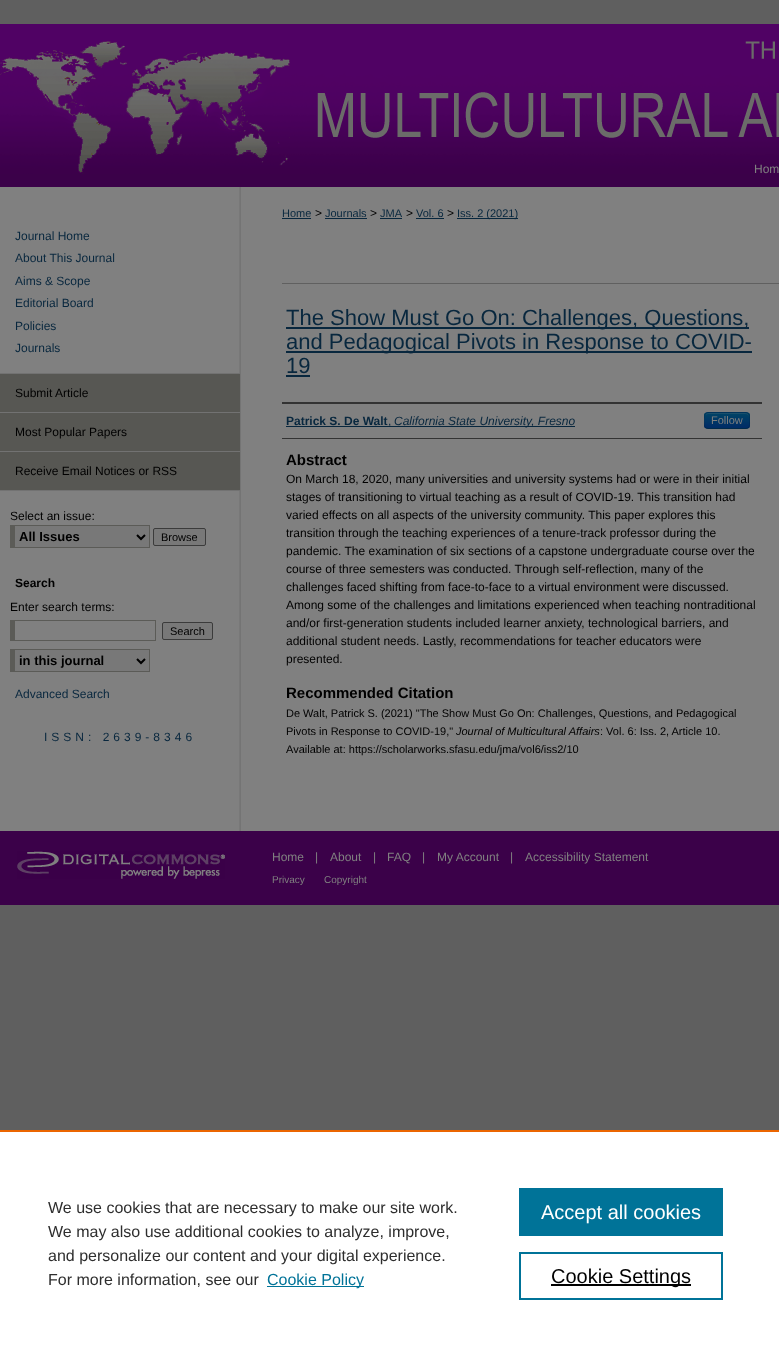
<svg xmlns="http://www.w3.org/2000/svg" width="779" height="1356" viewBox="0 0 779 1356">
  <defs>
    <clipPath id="clip1"><rect x="704" y="412" width="46" height="17" rx="4"/></clipPath>
    <linearGradient id="g1" gradientUnits="userSpaceOnUse" x1="727" y1="413" x2="727" y2="428"><stop offset="0" stop-color="rgb(0,68,102)"/><stop offset="1" stop-color="rgb(0,43,102)"/></linearGradient>
  </defs>
  <rect width="100%" height="100%" fill="rgb(95,95,95)"/>
  <image x="0" y="24" width="779" height="127" href="pic1.png"/>
  <rect x="0" y="174" width="779" height="13" fill="rgb(59,1,73)"/>
  <image x="0" y="151" width="779" height="23" href="pic2.png"/>
  <text x="754" y="173" font-family="Liberation Sans" font-size="12" fill="rgb(128,128,128)">Hom</text>
  <rect x="0" y="187" width="779" height="644" fill="rgb(128,128,128)"/>
  <image x="239" y="187" width="2" height="644" href="pic3.png"/>
  <g font-family="Liberation Sans" font-size="12" fill="rgb(8,39,62)">
    <text>
      <tspan x="15" y="240">Journal Home</tspan>
      <tspan x="15" y="262">About This Journal</tspan>
      <tspan x="15" y="285">Aims &amp; Scope</tspan>
      <tspan x="15" y="307">Editorial Board</tspan>
      <tspan x="15" y="330">Policies</tspan>
      <tspan x="15" y="352">Journals</tspan>
    </text>
  </g>
  <rect x="0" y="373" width="240" height="1" fill="rgb(114,114,114)"/>
  <rect x="0" y="374" width="240" height="38" fill="rgb(87,87,83)"/>
  <rect x="0" y="412" width="240" height="1" fill="rgb(114,114,114)"/>
  <text x="15" y="397" font-family="Liberation Sans" font-size="12" fill="rgb(0,0,0)">Submit Article</text>
  <rect x="0" y="413" width="240" height="38" fill="rgb(87,87,83)"/>
  <rect x="0" y="451" width="240" height="1" fill="rgb(114,114,114)"/>
  <text x="15" y="436" font-family="Liberation Sans" font-size="12" fill="rgb(0,0,0)">Most Popular Papers</text>
  <rect x="0" y="452" width="240" height="38" fill="rgb(87,87,83)"/>
  <rect x="0" y="490" width="240" height="1" fill="rgb(114,114,114)"/>
  <g font-family="Liberation Sans" font-size="12" fill="rgb(0,0,0)">
    <text x="15" y="475">Receive Email Notices or RSS</text>
    <text x="10" y="520">Select an issue:</text>
  </g>
  <rect x="15" y="526" width="134" height="21" fill="rgb(120,120,120)"/>
  <rect x="10" y="525" width="140" height="1" fill="rgb(91,91,87)"/>
  <rect x="149" y="525" width="1" height="23" fill="rgb(91,91,87)"/>
  <rect x="10" y="547" width="140" height="1" fill="rgb(91,91,87)"/>
  <rect x="10" y="525" width="5" height="23" fill="rgb(91,91,87)"/>
  <path d="M137 535L141 539L145 535" fill="none" stroke="rgb(0,0,0)" stroke-width="2"/>
  <text x="19" y="541" font-family="Liberation Sans" font-size="13" font-weight="bold" fill="rgb(0,0,0)">All Issues</text>
  <rect x="153.5" y="528.5" width="52" height="17" rx="1.5" fill="rgb(120,120,120)" stroke="rgb(59,59,59)"/>
  <text x="161" y="541" font-family="Liberation Sans" font-size="11" fill="rgb(0,0,0)">Browse</text>
  <text x="15" y="587" font-family="Liberation Sans" font-size="12" font-weight="bold" fill="rgb(0,0,0)">Search</text>
  <text x="10" y="611" font-family="Liberation Sans" font-size="12" fill="rgb(0,0,0)">Enter search terms:</text>
  <rect x="10" y="620" width="146" height="1" fill="rgb(91,91,87)"/>
  <rect x="155" y="620" width="1" height="21" fill="rgb(91,91,87)"/>
  <rect x="10" y="640" width="146" height="1" fill="rgb(91,91,87)"/>
  <rect x="10" y="620" width="5" height="21" fill="rgb(91,91,87)"/>
  <rect x="162.5" y="622.5" width="50" height="17" rx="1.5" fill="rgb(120,120,120)" stroke="rgb(59,59,59)"/>
  <text x="170" y="635" font-family="Liberation Sans" font-size="11" fill="rgb(0,0,0)">Search</text>
  <rect x="15" y="650" width="134" height="21" fill="rgb(120,120,120)"/>
  <rect x="10" y="649" width="140" height="1" fill="rgb(91,91,87)"/>
  <rect x="149" y="649" width="1" height="23" fill="rgb(91,91,87)"/>
  <rect x="10" y="671" width="140" height="1" fill="rgb(91,91,87)"/>
  <rect x="10" y="649" width="5" height="23" fill="rgb(91,91,87)"/>
  <path d="M137 659L141 663L145 659" fill="none" stroke="rgb(0,0,0)" stroke-width="2"/>
  <text x="19" y="665" font-family="Liberation Sans" font-size="13" font-weight="bold" fill="rgb(0,0,0)">in this journal</text>
  <text x="15" y="698" font-family="Liberation Sans" font-size="12" fill="rgb(8,39,62)">Advanced Search</text>
  <text x="44" y="741" font-family="Liberation Sans" font-size="12" letter-spacing="4" fill="rgb(8,39,62)">ISSN: 2639-8346</text>
  <text x="282" y="217" font-family="Liberation Sans" font-size="11" fill="rgb(8,39,62)">Home</text>
  <rect x="282" y="218" width="29" height="1" fill="rgb(8,39,62)"/>
  <text x="315" y="217" font-family="Liberation Sans" font-size="12" fill="rgb(0,0,0)">&gt;</text>
  <text x="325" y="217" font-family="Liberation Sans" font-size="11" fill="rgb(8,39,62)">Journals</text>
  <rect x="325" y="218" width="42" height="1" fill="rgb(8,39,62)"/>
  <text x="370" y="217" font-family="Liberation Sans" font-size="12" fill="rgb(0,0,0)">&gt;</text>
  <text x="380" y="217" font-family="Liberation Sans" font-size="11" fill="rgb(8,39,62)">JMA</text>
  <rect x="380" y="218" width="22" height="1" fill="rgb(8,39,62)"/>
  <text x="406" y="217" font-family="Liberation Sans" font-size="12" fill="rgb(0,0,0)">&gt;</text>
  <text x="416" y="217" font-family="Liberation Sans" font-size="11" fill="rgb(8,39,62)">Vol. 6</text>
  <rect x="416" y="218" width="28" height="1" fill="rgb(8,39,62)"/>
  <text x="447" y="217" font-family="Liberation Sans" font-size="12" fill="rgb(0,0,0)">&gt;</text>
  <rect x="457" y="218" width="61" height="1" fill="rgb(8,39,62)"/>
  <text x="457" y="217" font-family="Liberation Sans" font-size="11" fill="rgb(8,39,62)">Iss. 2 (2021)</text>
  <rect x="282" y="283" width="497" height="1" fill="rgb(96,96,96)"/>
  <rect x="286" y="327" width="463" height="2" fill="rgb(8,39,62)"/>
  <text x="286" y="325" font-family="Liberation Sans" font-size="22" fill="rgb(8,39,62)">The Show Must Go On: Challenges, Questions,</text>
  <rect x="286" y="351" width="466" height="2" fill="rgb(8,39,62)"/>
  <g font-family="Liberation Sans" font-size="22" fill="rgb(8,39,62)">
    <text>
      <tspan x="286" y="349">and Pedagogical Pivots in Response to COVID-</tspan>
      <tspan x="286" y="373">19</tspan>
    </text>
  </g>
  <rect x="286" y="375" width="24" height="2" fill="rgb(8,39,62)"/>
  <rect x="282" y="402" width="480" height="2" fill="rgb(51,51,51)"/>
  <rect x="282" y="438" width="480" height="1" fill="rgb(51,51,51)"/>
  <text x="286" y="425" font-family="Liberation Sans" font-size="12" font-weight="bold" fill="rgb(8,39,62)">Patrick S. De Walt</text>
  <rect x="286" y="426" width="289" height="1" fill="rgb(8,39,62)"/>
  <text x="388" y="425" font-family="Liberation Sans" font-size="12" fill="rgb(8,39,62)">,</text>
  <text x="394" y="425" font-family="Liberation Sans" font-size="12" font-style="italic" fill="rgb(8,39,62)">California State University, Fresno</text>
  <rect x="704" y="412" width="46" height="17" rx="4" fill="rgb(0,58,102)"/>
  <g clip-path="url(#clip1)">
    <rect x="704" y="413" width="46" height="15" fill="url(#g1)"/>
  </g>
  <path d="M708 414H741C748 414 749 414 749 420V426V419C749 412 747 413 740 413H714C707 413 705 412 705 419V427C705 424 703 414 708 414Z" fill="rgba(128,128,128,0.2)"/>
  <path d="M748.5 427.5C748 428 747 428.5 746 428.5H708C707 428.5 706 428 705.5 427.5" fill="none" stroke="rgba(0,0,0,0.25)"/>
  <path d="M705.5 427.5C704 425.5 704.5 422.5 704.5 420.5C704.5 411.5 705 412.5 714.5 412.5H739.5C749 412.5 749.5 411.5 749.5 420.5C749.5 422.5 750 425.5 748.5 427.5" fill="none" stroke="rgba(0,0,0,0.1)"/>
  <text x="711" y="424" font-family="Liberation Sans" font-size="11" fill="rgb(128,128,128)">Follow</text>
  <text x="286" y="465" font-family="Liberation Sans" font-size="15" font-weight="bold" fill="rgb(0,0,0)">Abstract</text>
  <g font-family="Liberation Sans" font-size="12" fill="rgb(0,0,0)">
    <text>
      <tspan x="286" y="483">On March 18, 2020, many universities and university systems had or were in their initial</tspan>
      <tspan x="286" y="501">stages of transitioning to virtual teaching as a result of COVID-19. This transition had</tspan>
      <tspan x="286" y="519">varied effects on all aspects of the university community. This paper explores this</tspan>
      <tspan x="286" y="537">transition through the teaching experiences of a tenure-track professor during the</tspan>
      <tspan x="286" y="555">pandemic. The examination of six sections of a capstone undergraduate course over the</tspan>
      <tspan x="286" y="573">course of three semesters was conducted. Through self-reflection, many of the</tspan>
      <tspan x="286" y="591">challenges faced shifting from face-to-face to a virtual environment were discussed.</tspan>
      <tspan x="286" y="609">Among some of the challenges and limitations experienced when teaching nontraditional</tspan>
      <tspan x="286" y="627">and/or first-generation students included learner anxiety, technological barriers, and</tspan>
      <tspan x="286" y="645">additional student needs. Lastly, recommendations for teacher educators were</tspan>
      <tspan x="286" y="663">presented.</tspan>
    </text>
  </g>
  <text x="286" y="698" font-family="Liberation Sans" font-size="15" font-weight="bold" fill="rgb(0,0,0)">Recommended Citation</text>
  <g font-family="Liberation Sans" font-size="11" fill="rgb(0,0,0)">
    <text>
      <tspan x="286" y="717">De Walt, Patrick S. (2021) "The Show Must Go On: Challenges, Questions, and Pedagogical</tspan>
      <tspan x="286" y="735">Pivots in Response to COVID-19,"</tspan>
    </text>
  </g>
  <text x="456" y="735" font-family="Liberation Sans" font-size="11" font-style="italic" fill="rgb(0,0,0)">Journal of Multicultural Affairs</text>
  <g font-family="Liberation Sans" font-size="11" fill="rgb(0,0,0)">
    <text x="600" y="735">: Vol. 6: Iss. 2, Article 10.</text>
    <text x="286" y="753">Available at: https://scholarworks.sfasu.edu/jma/vol6/iss2/10</text>
  </g>
  <rect x="0" y="831" width="779" height="74" fill="rgb(59,1,73)"/>
  <image x="17" y="851" width="208" height="28" href="pic4.png"/>
  <g font-family="Liberation Sans" font-size="12" fill="rgb(128,128,128)">
    <text x="272" y="861">Home</text>
    <text x="315" y="861">|</text>
    <text x="330" y="861">About</text>
    <text x="373" y="861">|</text>
    <text x="387" y="861">FAQ</text>
    <text x="422" y="861">|</text>
    <text x="437" y="861">My Account</text>
    <text x="510" y="861">|</text>
    <text x="525" y="861">Accessibility Statement</text>
  </g>
  <g font-family="Liberation Sans" font-size="10" fill="rgb(128,128,128)">
    <text x="272" y="883">Privacy</text>
    <text x="324" y="883">Copyright</text>
  </g>
  <rect x="0" y="1132" width="779" height="224" fill="rgb(255,255,255)"/>
  <rect x="0" y="1130" width="779" height="2" fill="rgb(235,101,0)"/>
  <g font-family="Liberation Sans" font-size="16" fill="rgb(46,46,46)">
    <text>
      <tspan x="48" y="1213">We use cookies that are necessary to make our site work.</tspan>
      <tspan x="48" y="1237">We may also use additional cookies to analyze, improve,</tspan>
      <tspan x="48" y="1261">and personalize our content and your digital experience.</tspan>
      <tspan x="48" y="1285">For more information, see our</tspan>
    </text>
  </g>
  <rect x="267" y="1286" width="97" height="1" fill="rgb(0,115,152)"/>
  <text x="267" y="1285" font-family="Liberation Sans" font-size="16" fill="rgb(0,115,152)">Cookie Policy</text>
  <rect x="519" y="1188" width="204" height="48" fill="rgb(0,115,152)"/>
  <text x="541" y="1219" font-family="Liberation Sans" font-size="20" fill="rgb(255,255,255)">Accept all cookies</text>
  <rect x="520" y="1253" width="202" height="46" fill="none" stroke="rgb(0,115,152)" stroke-width="2"/>
  <rect x="551" y="1284" width="140" height="2" fill="rgb(0,0,0)"/>
  <text x="551" y="1283" font-family="Liberation Sans" font-size="20" fill="rgb(0,0,0)">Cookie Settings</text>
</svg>
